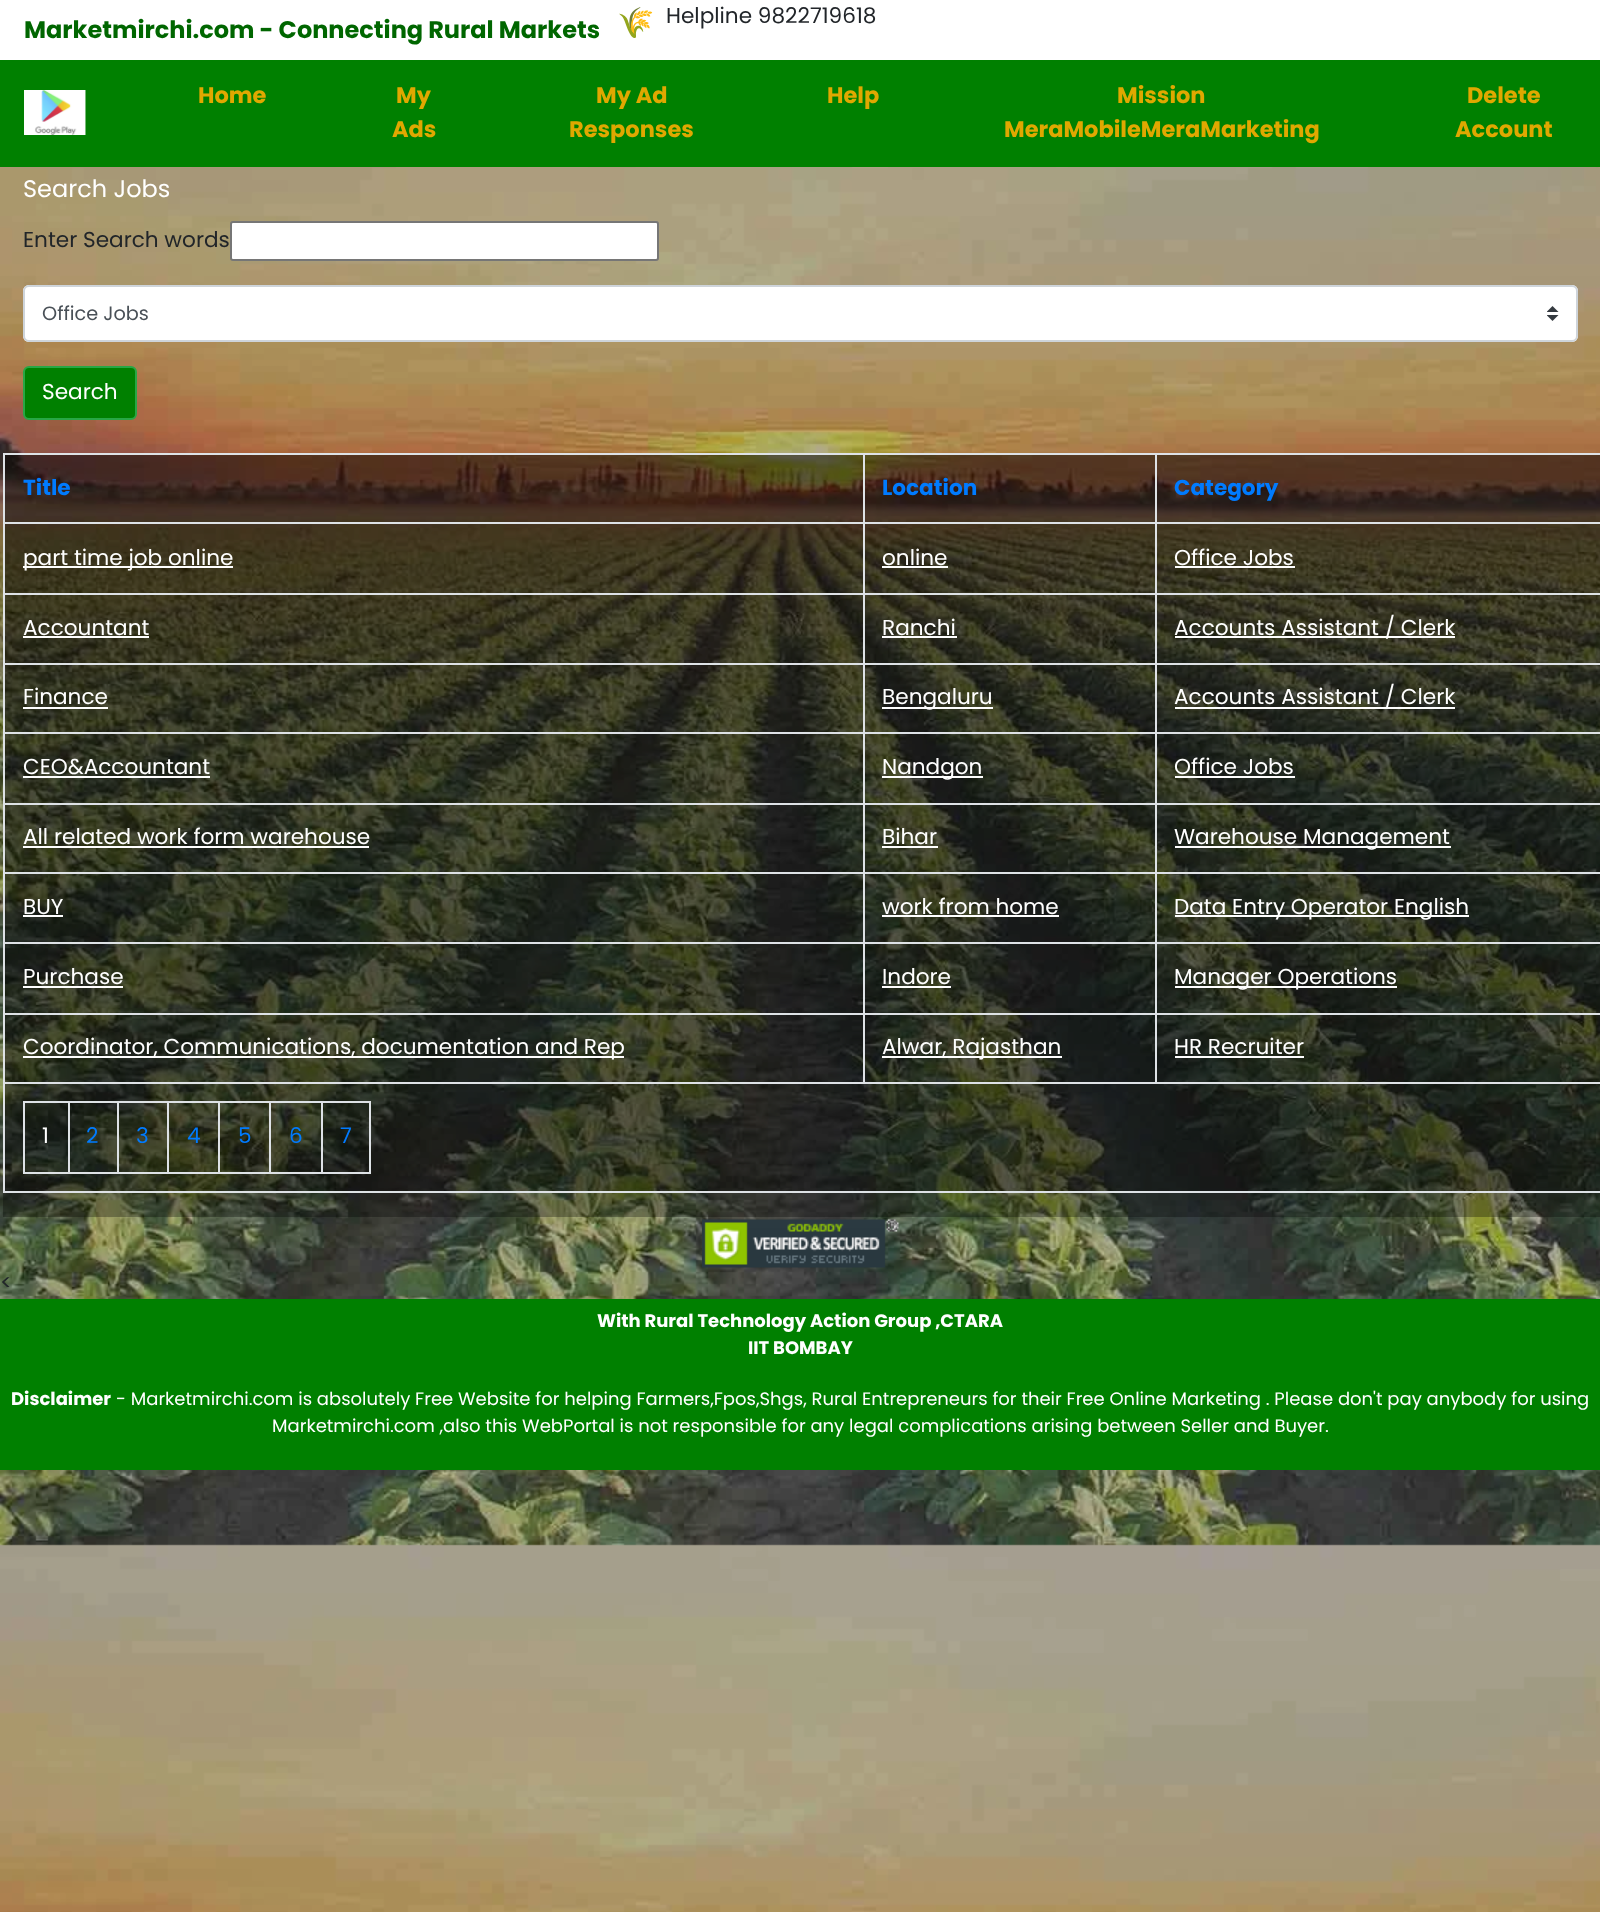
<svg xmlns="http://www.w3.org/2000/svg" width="1600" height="1912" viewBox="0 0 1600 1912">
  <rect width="100%" height="100%" fill="rgb(255,255,255)"/>
  <image x="0" y="167" width="1600" height="1745" href="pic1.png"/>
  <text x="24" y="38" font-family="Poppins" font-size="24" font-weight="bold" fill="rgb(0,102,0)">Marketmirchi.com - Connecting Rural Markets</text>
  <text x="617" y="33" font-family="Noto Color Emoji" font-size="30" fill="rgb(33,37,41)">🌾</text>
  <text x="666" y="23" font-family="Poppins" font-size="21.6" fill="rgb(33,37,41)">Helpline 9822719618</text>
  <rect x="0" y="60" width="1600" height="107" fill="rgb(0,128,0)"/>
  <image x="24" y="90" width="62" height="45" href="pic2.png"/>
  <g font-family="Poppins" font-size="22.5" font-weight="bold" fill="rgb(224,168,0)">
    <text x="198" y="103">Home</text>
    <text x="396" y="103">My</text>
    <text x="392" y="137">Ads</text>
    <text x="596" y="103">My Ad</text>
    <text x="569" y="137">Responses</text>
    <text x="827" y="103">Help</text>
    <text x="1117" y="103">Mission</text>
    <text x="1004" y="137">MeraMobileMeraMarketing</text>
    <text x="1467" y="103">Delete</text>
    <text x="1455" y="137">Account</text>
  </g>
  <text x="23" y="197" font-family="Poppins" font-size="24" fill="rgb(255,255,255)">Search Jobs</text>
  <text x="23" y="247" font-family="Poppins" font-size="21.6" fill="rgb(33,37,41)">Enter Search words</text>
  <rect x="231" y="222" width="427" height="38" rx="2" fill="rgb(255,255,255)" stroke="rgb(118,118,118)" stroke-width="2"/>
  <rect x="23" y="285" width="1555" height="57" rx="6" fill="rgb(255,255,255)"/>
  <image x="1547" y="306" width="12" height="15" href="pic3.png"/>
  <rect x="24" y="286" width="1553" height="55" rx="5" fill="none" stroke="rgb(206,212,218)" stroke-width="2"/>
  <text x="42" y="320" font-family="Poppins" font-size="19.25" fill="rgb(73,80,87)">Office Jobs</text>
  <rect x="24" y="367" width="112" height="52" rx="5" fill="rgb(0,128,0)" stroke="rgb(40,167,69)" stroke-width="2"/>
  <text x="42" y="399" font-family="Poppins" font-size="21.6" fill="rgb(255,255,255)">Search</text>
  <rect x="3" y="455" width="1597" height="762" fill="rgba(0,0,0,0.3)"/>
  <rect x="5" y="455" width="1595" height="736" fill="rgba(0,0,0,0.3)"/>
  <rect x="3" y="453" width="1597" height="2" fill="rgb(222,226,230)"/>
  <rect x="3" y="1191" width="1597" height="2" fill="rgb(222,226,230)"/>
  <rect x="3" y="453" width="2" height="740" fill="rgb(222,226,230)"/>
  <text x="23" y="495" font-family="Poppins" font-size="21.6" font-weight="bold" fill="rgb(0,123,255)">Title</text>
  <rect x="1155" y="522" width="445" height="2" fill="rgb(222,226,230)"/>
  <rect x="1155" y="593" width="445" height="2" fill="rgb(222,226,230)"/>
  <rect x="1155" y="663" width="445" height="2" fill="rgb(222,226,230)"/>
  <rect x="1155" y="732" width="445" height="2" fill="rgb(222,226,230)"/>
  <rect x="1155" y="803" width="445" height="2" fill="rgb(222,226,230)"/>
  <rect x="1155" y="872" width="445" height="2" fill="rgb(222,226,230)"/>
  <rect x="1155" y="942" width="445" height="2" fill="rgb(222,226,230)"/>
  <rect x="1155" y="1013" width="445" height="2" fill="rgb(222,226,230)"/>
  <rect x="3" y="1082" width="1597" height="2" fill="rgb(222,226,230)"/>
  <rect x="1155" y="1013" width="2" height="70" fill="rgb(222,226,230)"/>
  <rect x="863" y="1013" width="294" height="2" fill="rgb(222,226,230)"/>
  <rect x="1155" y="942" width="2" height="72" fill="rgb(222,226,230)"/>
  <rect x="863" y="942" width="294" height="2" fill="rgb(222,226,230)"/>
  <rect x="1155" y="872" width="2" height="72" fill="rgb(222,226,230)"/>
  <rect x="863" y="872" width="294" height="2" fill="rgb(222,226,230)"/>
  <rect x="1155" y="803" width="2" height="70" fill="rgb(222,226,230)"/>
  <rect x="863" y="803" width="294" height="2" fill="rgb(222,226,230)"/>
  <rect x="1155" y="732" width="2" height="72" fill="rgb(222,226,230)"/>
  <rect x="863" y="732" width="294" height="2" fill="rgb(222,226,230)"/>
  <rect x="1155" y="663" width="2" height="71" fill="rgb(222,226,230)"/>
  <rect x="863" y="663" width="294" height="2" fill="rgb(222,226,230)"/>
  <rect x="1155" y="593" width="2" height="72" fill="rgb(222,226,230)"/>
  <rect x="863" y="593" width="294" height="2" fill="rgb(222,226,230)"/>
  <rect x="1155" y="522" width="2" height="72" fill="rgb(222,226,230)"/>
  <rect x="863" y="522" width="294" height="2" fill="rgb(222,226,230)"/>
  <rect x="863" y="1013" width="2" height="70" fill="rgb(222,226,230)"/>
  <rect x="3" y="1013" width="861" height="2" fill="rgb(222,226,230)"/>
  <rect x="863" y="942" width="2" height="72" fill="rgb(222,226,230)"/>
  <rect x="3" y="942" width="861" height="2" fill="rgb(222,226,230)"/>
  <rect x="863" y="872" width="2" height="72" fill="rgb(222,226,230)"/>
  <rect x="3" y="872" width="861" height="2" fill="rgb(222,226,230)"/>
  <rect x="863" y="803" width="2" height="70" fill="rgb(222,226,230)"/>
  <rect x="3" y="803" width="861" height="2" fill="rgb(222,226,230)"/>
  <rect x="863" y="732" width="2" height="72" fill="rgb(222,226,230)"/>
  <rect x="3" y="732" width="861" height="2" fill="rgb(222,226,230)"/>
  <rect x="863" y="663" width="2" height="71" fill="rgb(222,226,230)"/>
  <rect x="3" y="663" width="861" height="2" fill="rgb(222,226,230)"/>
  <rect x="863" y="593" width="2" height="72" fill="rgb(222,226,230)"/>
  <rect x="3" y="593" width="861" height="2" fill="rgb(222,226,230)"/>
  <rect x="863" y="522" width="2" height="72" fill="rgb(222,226,230)"/>
  <rect x="3" y="522" width="861" height="2" fill="rgb(222,226,230)"/>
  <rect x="863" y="453" width="2" height="71" fill="rgb(222,226,230)"/>
  <text x="882" y="495" font-family="Poppins" font-size="21.6" font-weight="bold" fill="rgb(0,123,255)">Location</text>
  <rect x="1155" y="453" width="2" height="71" fill="rgb(222,226,230)"/>
  <text x="1174" y="495" font-family="Poppins" font-size="21.6" font-weight="bold" fill="rgb(0,123,255)">Category</text>
  <rect x="23" y="566" width="210" height="2" fill="rgb(255,255,255)"/>
  <g font-family="Poppins" font-size="21.6" fill="rgb(255,255,255)">
    <text x="23" y="565">part time job online</text>
    <text x="882" y="565">online</text>
  </g>
  <rect x="882" y="566" width="66" height="2" fill="rgb(255,255,255)"/>
  <text x="1174" y="565" font-family="Poppins" font-size="21.6" fill="rgb(255,255,255)">Office Jobs</text>
  <rect x="1175" y="566" width="120" height="2" fill="rgb(255,255,255)"/>
  <text x="23" y="635" font-family="Poppins" font-size="21.6" fill="rgb(255,255,255)">Accountant</text>
  <rect x="23" y="636" width="126" height="2" fill="rgb(255,255,255)"/>
  <text x="882" y="635" font-family="Poppins" font-size="21.6" fill="rgb(255,255,255)">Ranchi</text>
  <rect x="882" y="636" width="75" height="2" fill="rgb(255,255,255)"/>
  <rect x="1175" y="636" width="280" height="2" fill="rgb(255,255,255)"/>
  <g font-family="Poppins" font-size="21.6" fill="rgb(255,255,255)">
    <text x="1174" y="635">Accounts Assistant / Clerk</text>
    <text x="23" y="704">Finance</text>
  </g>
  <rect x="23" y="707" width="85" height="2" fill="rgb(255,255,255)"/>
  <rect x="882" y="707" width="111" height="2" fill="rgb(255,255,255)"/>
  <text x="882" y="704" font-family="Poppins" font-size="21.6" fill="rgb(255,255,255)">Bengaluru</text>
  <rect x="1175" y="707" width="280" height="2" fill="rgb(255,255,255)"/>
  <g font-family="Poppins" font-size="21.6" fill="rgb(255,255,255)">
    <text x="1174" y="704">Accounts Assistant / Clerk</text>
    <text x="23" y="774">CEO&amp;Accountant</text>
  </g>
  <rect x="23" y="776" width="187" height="2" fill="rgb(255,255,255)"/>
  <rect x="882" y="776" width="101" height="2" fill="rgb(255,255,255)"/>
  <g font-family="Poppins" font-size="21.6" fill="rgb(255,255,255)">
    <text x="882" y="774">Nandgon</text>
    <text x="1174" y="774">Office Jobs</text>
  </g>
  <rect x="1175" y="776" width="120" height="2" fill="rgb(255,255,255)"/>
  <text x="23" y="844" font-family="Poppins" font-size="21.6" fill="rgb(255,255,255)">All related work form warehouse</text>
  <rect x="23" y="846" width="346" height="2" fill="rgb(255,255,255)"/>
  <text x="882" y="844" font-family="Poppins" font-size="21.6" fill="rgb(255,255,255)">Bihar</text>
  <rect x="882" y="846" width="56" height="2" fill="rgb(255,255,255)"/>
  <rect x="1175" y="846" width="276" height="2" fill="rgb(255,255,255)"/>
  <g font-family="Poppins" font-size="21.6" fill="rgb(255,255,255)">
    <text x="1174" y="844">Warehouse Management</text>
    <text x="23" y="914">BUY</text>
  </g>
  <rect x="23" y="915" width="40" height="2" fill="rgb(255,255,255)"/>
  <text x="882" y="914" font-family="Poppins" font-size="21.6" fill="rgb(255,255,255)">work from home</text>
  <rect x="882" y="915" width="177" height="2" fill="rgb(255,255,255)"/>
  <rect x="1175" y="915" width="294" height="2" fill="rgb(255,255,255)"/>
  <g font-family="Poppins" font-size="21.6" fill="rgb(255,255,255)">
    <text x="1174" y="914">Data Entry Operator English</text>
    <text x="23" y="984">Purchase</text>
  </g>
  <rect x="23" y="986" width="100" height="2" fill="rgb(255,255,255)"/>
  <text x="882" y="984" font-family="Poppins" font-size="21.6" fill="rgb(255,255,255)">Indore</text>
  <rect x="882" y="986" width="69" height="2" fill="rgb(255,255,255)"/>
  <rect x="1175" y="986" width="222" height="2" fill="rgb(255,255,255)"/>
  <text x="1174" y="984" font-family="Poppins" font-size="21.6" fill="rgb(255,255,255)">Manager Operations</text>
  <rect x="23" y="1056" width="601" height="2" fill="rgb(255,255,255)"/>
  <text x="23" y="1054" font-family="Poppins" font-size="21.6" fill="rgb(255,255,255)">Coordinator, Communications, documentation and Rep</text>
  <rect x="882" y="1056" width="180" height="2" fill="rgb(255,255,255)"/>
  <g font-family="Poppins" font-size="21.6" fill="rgb(255,255,255)">
    <text x="882" y="1054">Alwar, Rajasthan</text>
    <text x="1174" y="1054">HR Recruiter</text>
  </g>
  <rect x="1175" y="1056" width="129" height="2" fill="rgb(255,255,255)"/>
  <rect x="321" y="1101" width="50" height="2" fill="rgb(222,226,230)"/>
  <rect x="369" y="1101" width="2" height="72" fill="rgb(222,226,230)"/>
  <rect x="321" y="1172" width="50" height="2" fill="rgb(222,226,230)"/>
  <rect x="321" y="1101" width="2" height="72" fill="rgb(222,226,230)"/>
  <rect x="269" y="1101" width="54" height="2" fill="rgb(222,226,230)"/>
  <rect x="269" y="1172" width="54" height="2" fill="rgb(222,226,230)"/>
  <rect x="269" y="1101" width="2" height="72" fill="rgb(222,226,230)"/>
  <rect x="218" y="1101" width="52" height="2" fill="rgb(222,226,230)"/>
  <rect x="218" y="1172" width="52" height="2" fill="rgb(222,226,230)"/>
  <rect x="218" y="1101" width="2" height="72" fill="rgb(222,226,230)"/>
  <rect x="167" y="1101" width="52" height="2" fill="rgb(222,226,230)"/>
  <rect x="167" y="1172" width="52" height="2" fill="rgb(222,226,230)"/>
  <rect x="167" y="1101" width="2" height="72" fill="rgb(222,226,230)"/>
  <rect x="117" y="1101" width="51" height="2" fill="rgb(222,226,230)"/>
  <rect x="117" y="1172" width="51" height="2" fill="rgb(222,226,230)"/>
  <rect x="117" y="1101" width="2" height="72" fill="rgb(222,226,230)"/>
  <rect x="68" y="1101" width="51" height="2" fill="rgb(222,226,230)"/>
  <rect x="68" y="1172" width="51" height="2" fill="rgb(222,226,230)"/>
  <rect x="68" y="1101" width="2" height="72" fill="rgb(222,226,230)"/>
  <rect x="23" y="1101" width="46" height="2" fill="rgb(222,226,230)"/>
  <rect x="23" y="1172" width="46" height="2" fill="rgb(222,226,230)"/>
  <rect x="23" y="1101" width="2" height="72" fill="rgb(222,226,230)"/>
  <text x="42" y="1143" font-family="Poppins" font-size="21.6" fill="rgb(255,255,255)">1</text>
  <g font-family="Poppins" font-size="21.6" fill="rgb(0,123,255)">
    <text x="86" y="1143">2</text>
    <text x="136" y="1143">3</text>
    <text x="187" y="1143">4</text>
    <text x="238" y="1143">5</text>
    <text x="289" y="1143">6</text>
    <text x="340" y="1143">7</text>
  </g>
  <image x="702" y="1219" width="197" height="49" href="pic4.png"/>
  <text x="0" y="1290" font-family="Poppins" font-size="21.6" fill="rgb(33,37,41)">&lt;</text>
  <rect x="0" y="1299" width="1600" height="171" fill="rgb(0,128,0)"/>
  <g font-family="Poppins" font-size="18" font-weight="bold" fill="rgb(255,255,255)">
    <text x="597" y="1327">With Rural Technology Action Group ,CTARA</text>
    <text x="748" y="1354">IIT BOMBAY</text>
    <text x="11" y="1405">Disclaimer</text>
  </g>
  <g font-family="Poppins" font-size="18" fill="rgb(255,255,255)">
    <text x="116" y="1405">- Marketmirchi.com is absolutely Free Website for helping Farmers,Fpos,Shgs, Rural Entrepreneurs for their Free Online Marketing . Please don't pay anybody for using</text>
    <text x="272" y="1432">Marketmirchi.com ,also this WebPortal is not responsible for any legal complications arising between Seller and Buyer.</text>
  </g>
</svg>
